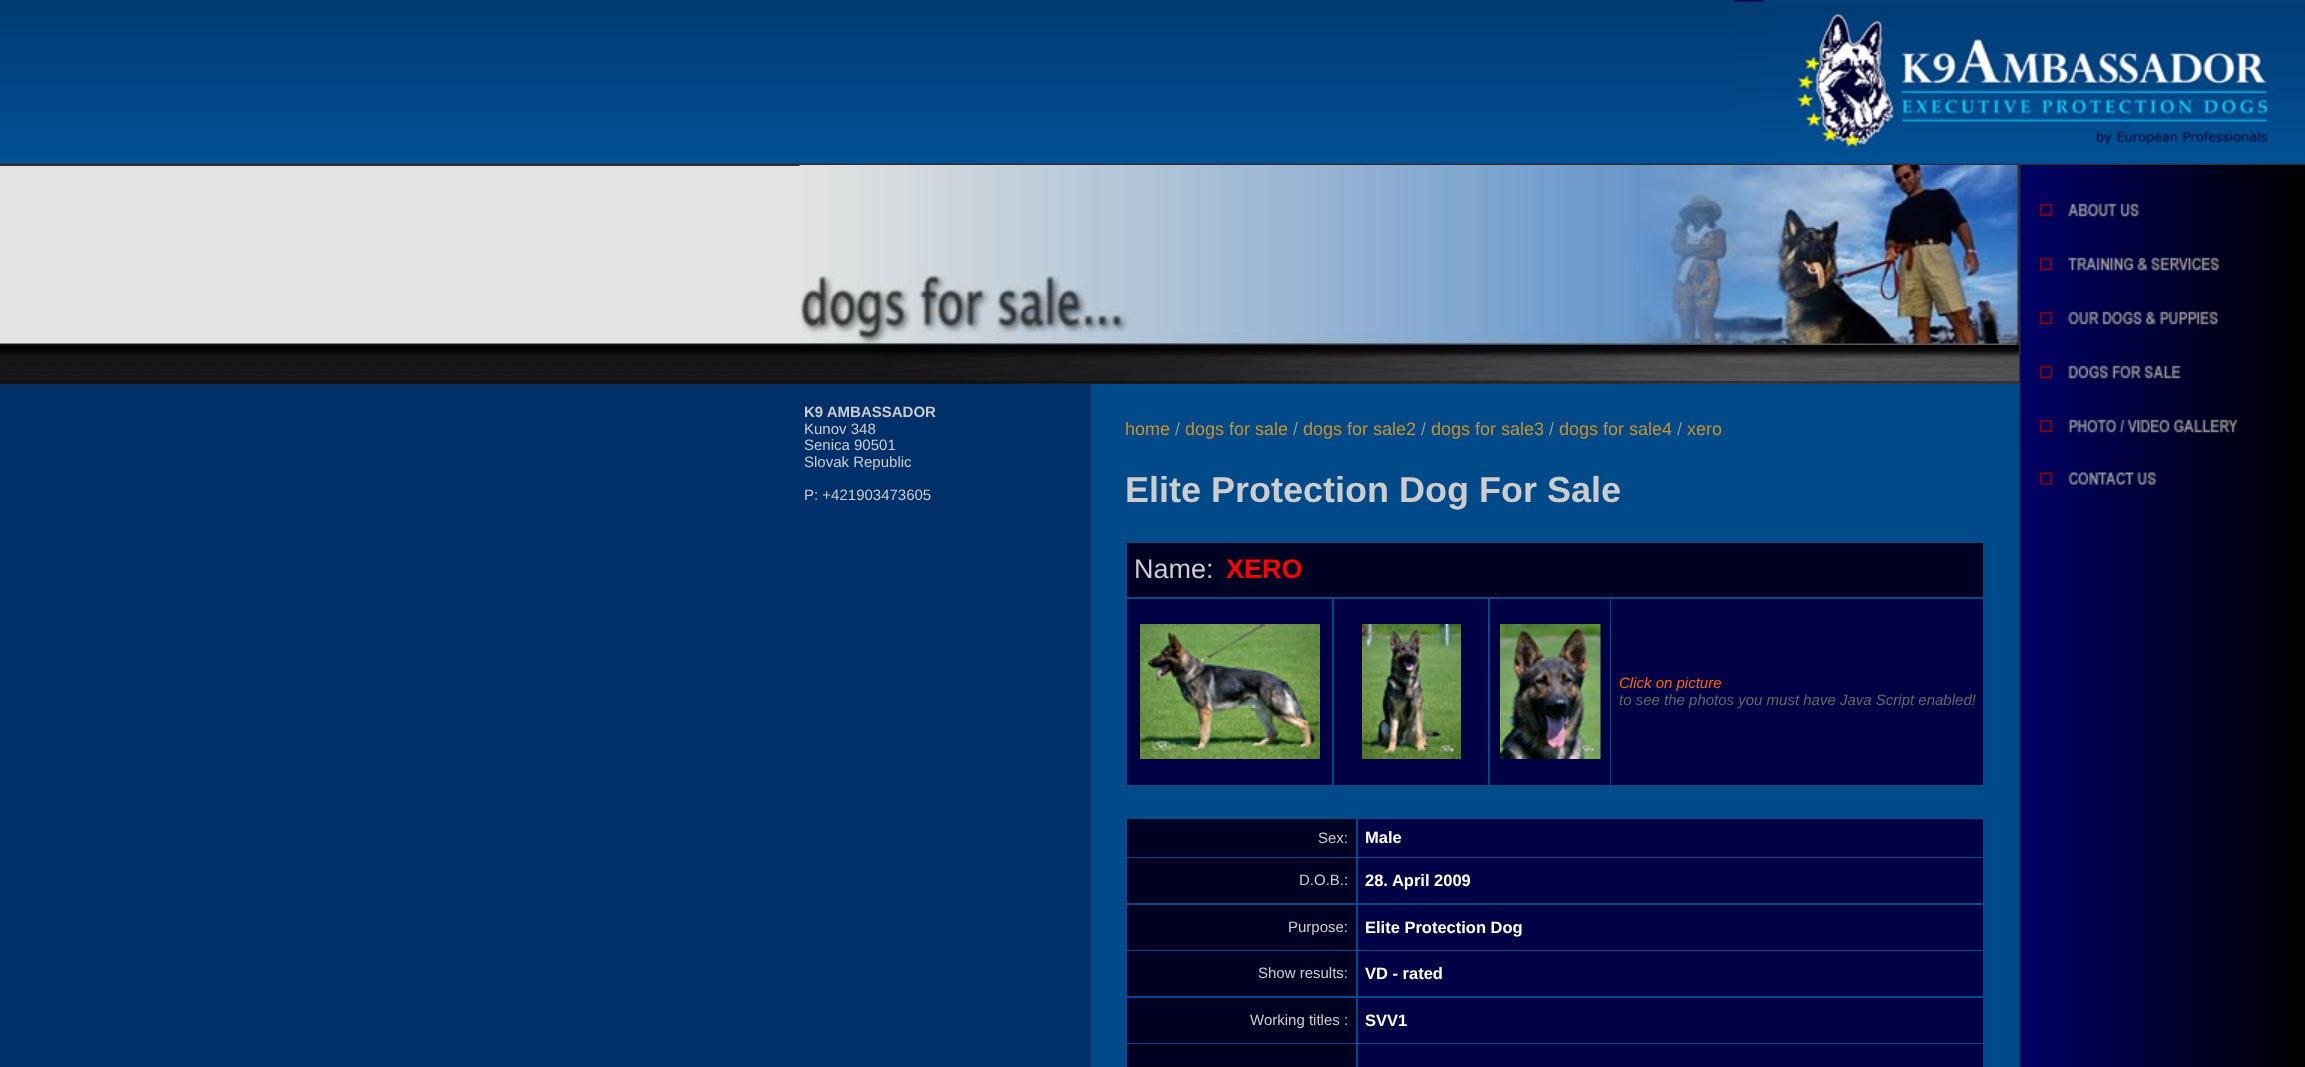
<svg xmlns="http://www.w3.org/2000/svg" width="2305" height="1067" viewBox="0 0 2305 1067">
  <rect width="100%" height="100%" fill="rgb(255,255,255)"/>
  <image x="0" y="0" width="2305" height="1067" href="pic1.png"/>
  <image x="1734" y="0" width="571" height="164" href="pic2.png"/>
  <rect x="0" y="164" width="2305" height="2" fill="rgb(49,46,51)"/>
  <image x="799" y="165" width="1220" height="180" href="pic3.png"/>
  <image x="873" y="345" width="1146" height="39" href="pic4.png"/>
  <rect x="785" y="384" width="306" height="1" fill="rgb(0,48,106)"/>
  <text x="804" y="417" font-family="Liberation Sans" font-size="15" font-weight="bold" fill="rgb(204,204,204)">K9 AMBASSADOR</text>
  <g font-family="Liberation Sans" font-size="15" fill="rgb(204,204,204)">
    <text>
      <tspan x="804" y="434">Kunov 348</tspan>
      <tspan x="804" y="450">Senica 90501</tspan>
      <tspan x="804" y="467">Slovak Republic</tspan>
    </text>
    <text x="804" y="500">P: +421903473605</text>
  </g>
  <rect x="1091" y="384" width="928" height="683" fill="rgb(0,74,137)"/>
  <text x="1125" y="435" font-family="Liberation Sans" font-size="18" fill="rgb(200,146,44)">home</text>
  <text x="1175" y="435" font-family="Liberation Sans" font-size="18" fill="rgb(148,148,151)">/</text>
  <text x="1185" y="435" font-family="Liberation Sans" font-size="18" fill="rgb(200,146,44)">dogs for sale</text>
  <text x="1293" y="435" font-family="Liberation Sans" font-size="18" fill="rgb(148,148,151)">/</text>
  <text x="1303" y="435" font-family="Liberation Sans" font-size="18" fill="rgb(200,146,44)">dogs for sale2</text>
  <text x="1421" y="435" font-family="Liberation Sans" font-size="18" fill="rgb(148,148,151)">/</text>
  <text x="1431" y="435" font-family="Liberation Sans" font-size="18" fill="rgb(200,146,44)">dogs for sale3</text>
  <text x="1549" y="435" font-family="Liberation Sans" font-size="18" fill="rgb(148,148,151)">/</text>
  <text x="1559" y="435" font-family="Liberation Sans" font-size="18" fill="rgb(200,146,44)">dogs for sale4</text>
  <text x="1677" y="435" font-family="Liberation Sans" font-size="18" fill="rgb(148,148,151)">/</text>
  <text x="1687" y="435" font-family="Liberation Sans" font-size="18" fill="rgb(200,146,44)">xero</text>
  <text x="1125" y="502" font-family="Liberation Sans" font-size="36" font-weight="bold" fill="rgb(204,204,204)">Elite Protection Dog For Sale</text>
  <rect x="1127" y="543" width="856" height="54" fill="rgb(0,0,34)"/>
  <text x="1134" y="578" font-family="Liberation Sans" font-size="27" fill="rgb(204,204,204)">Name:</text>
  <text x="1226" y="578" font-family="Liberation Sans" font-size="27" font-weight="bold" fill="rgb(255,0,0)">XERO</text>
  <rect x="1127" y="599" width="205" height="186" fill="rgb(0,0,68)"/>
  <image x="1140" y="624" width="180" height="135" href="pic5.png"/>
  <rect x="1334" y="599" width="154" height="186" fill="rgb(0,0,68)"/>
  <image x="1362" y="624" width="99" height="135" href="pic6.png"/>
  <rect x="1490" y="599" width="120" height="186" fill="rgb(0,0,68)"/>
  <image x="1500" y="624" width="101" height="135" href="pic7.png"/>
  <rect x="1611" y="599" width="372" height="186" fill="rgb(0,0,68)"/>
  <text x="1619" y="688" font-family="Liberation Sans" font-size="15" font-style="italic" fill="rgb(255,102,0)">Click on picture</text>
  <text x="1619" y="705" font-family="Liberation Sans" font-size="15" font-style="italic" fill="rgb(102,102,102)">to see the photos you must have Java Script enabled!</text>
  <rect x="1127" y="819" width="229" height="38" fill="rgb(0,0,34)"/>
  <text x="1318" y="843" font-family="Liberation Sans" font-size="15" fill="rgb(204,204,204)">Sex:</text>
  <rect x="1358" y="819" width="625" height="38" fill="rgb(0,0,68)"/>
  <text x="1365" y="843" font-family="Liberation Sans" font-size="16.5" font-weight="bold" fill="rgb(255,255,255)">Male</text>
  <rect x="1127" y="858" width="229" height="45" fill="rgb(0,0,34)"/>
  <text x="1299" y="885" font-family="Liberation Sans" font-size="15" fill="rgb(204,204,204)">D.O.B.:</text>
  <rect x="1358" y="858" width="625" height="45" fill="rgb(0,0,68)"/>
  <text x="1365" y="886" font-family="Liberation Sans" font-size="16.5" font-weight="bold" fill="rgb(255,255,255)">28. April 2009</text>
  <rect x="1127" y="905" width="229" height="45" fill="rgb(0,0,34)"/>
  <text x="1288" y="932" font-family="Liberation Sans" font-size="15" fill="rgb(204,204,204)">Purpose:</text>
  <rect x="1358" y="905" width="625" height="45" fill="rgb(0,0,68)"/>
  <text x="1365" y="933" font-family="Liberation Sans" font-size="16.5" font-weight="bold" fill="rgb(255,255,255)">Elite Protection Dog</text>
  <rect x="1127" y="951" width="229" height="45" fill="rgb(0,0,34)"/>
  <text x="1258" y="978" font-family="Liberation Sans" font-size="15" fill="rgb(204,204,204)">Show results:</text>
  <rect x="1358" y="951" width="625" height="45" fill="rgb(0,0,68)"/>
  <text x="1365" y="979" font-family="Liberation Sans" font-size="16.5" font-weight="bold" fill="rgb(255,255,255)">VD - rated</text>
  <rect x="1127" y="998" width="229" height="45" fill="rgb(0,0,34)"/>
  <text x="1250" y="1025" font-family="Liberation Sans" font-size="15" fill="rgb(204,204,204)">Working titles :</text>
  <rect x="1358" y="998" width="625" height="45" fill="rgb(0,0,68)"/>
  <text x="1365" y="1026" font-family="Liberation Sans" font-size="16.5" font-weight="bold" fill="rgb(255,255,255)">SVV1</text>
  <rect x="1127" y="1044" width="229" height="23" fill="rgb(0,0,34)"/>
  <rect x="1358" y="1044" width="625" height="23" fill="rgb(0,0,68)"/>
  <image x="2019" y="165" width="286" height="902" href="pic8.png"/>
  <image x="2039" y="203" width="101" height="14" href="pic9.png"/>
  <image x="2039" y="257" width="180" height="14" href="pic10.png"/>
  <image x="2039" y="311" width="180" height="14" href="pic11.png"/>
  <image x="2039" y="365" width="143" height="14" href="pic12.png"/>
  <image x="2039" y="419" width="200" height="14" href="pic13.png"/>
  <image x="2039" y="472" width="117" height="13" href="pic14.png"/>
</svg>
